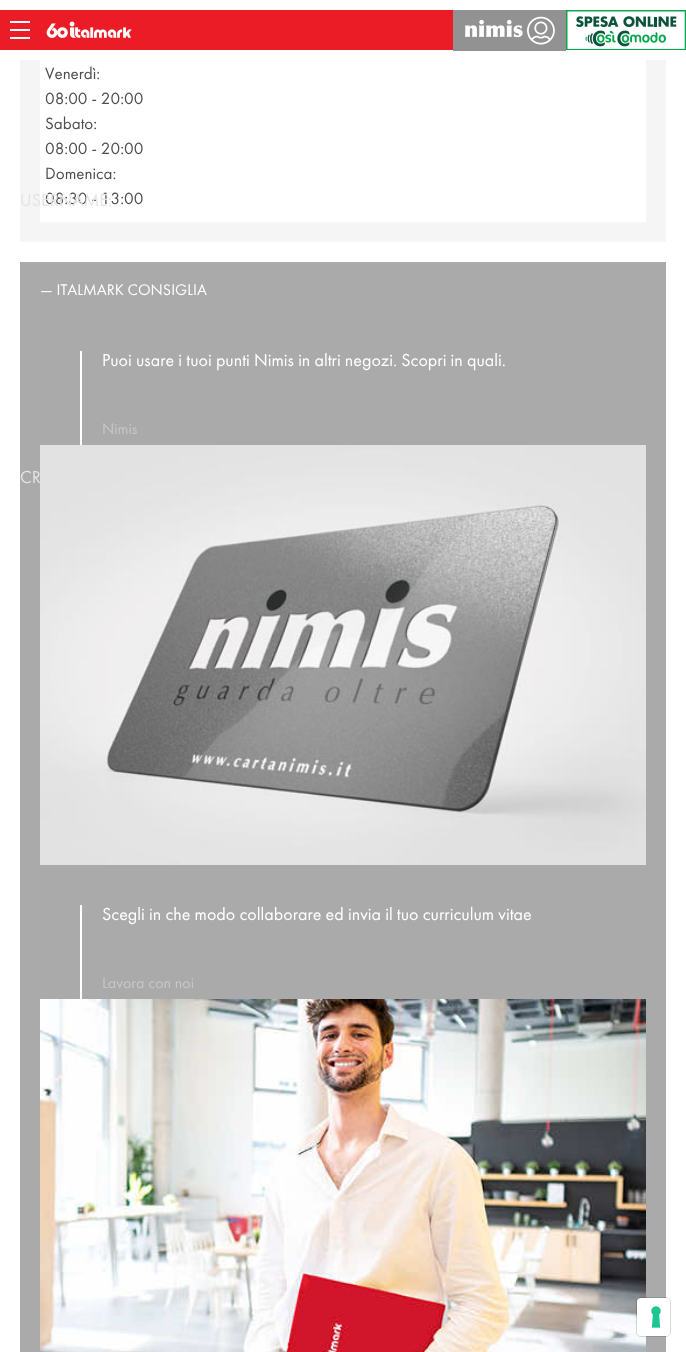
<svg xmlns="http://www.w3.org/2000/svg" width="686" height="1352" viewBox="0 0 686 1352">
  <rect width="100%" height="100%" fill="rgb(255,255,255)"/>
  <rect x="0" y="10" width="453" height="40" fill="rgb(235,28,38)"/>
  <image x="46" y="21" width="86" height="17" href="pic1.png"/>
  <rect x="453" y="10" width="113" height="41" fill="rgb(147,146,146)"/>
  <image x="465" y="16" width="90" height="29" href="pic2.png"/>
  <image x="566" y="10" width="120" height="40" href="pic3.png"/>
  <rect x="10" y="21" width="20" height="2" fill="rgb(255,255,255)"/>
  <rect x="10" y="29" width="20" height="2" fill="rgb(255,255,255)"/>
  <rect x="10" y="37" width="20" height="2" fill="rgb(255,255,255)"/>
  <rect x="20" y="60" width="646" height="182" fill="rgb(245,245,245)"/>
  <rect x="40" y="60" width="606" height="162" fill="rgb(255,255,255)"/>
  <g font-family="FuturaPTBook" font-size="17" fill="rgb(77,77,77)">
    <text>
      <tspan x="45" y="79">Venerdì:</tspan>
      <tspan x="45" y="104">08:00 - 20:00</tspan>
      <tspan x="45" y="129">Sabato:</tspan>
      <tspan x="45" y="154">08:00 - 20:00</tspan>
      <tspan x="45" y="179">Domenica:</tspan>
      <tspan x="45" y="204">08:30 - 13:00</tspan>
    </text>
  </g>
  <rect x="20" y="262" width="646" height="1090" fill="rgb(170,170,170)"/>
  <text x="40" y="295" font-family="FuturaPTBook" font-size="16" fill="rgb(255,255,255)">— ITALMARK CONSIGLIA</text>
  <rect x="80" y="351" width="2" height="94" fill="rgb(255,255,255)"/>
  <text x="102" y="366" font-family="FuturaPTBook" font-size="18" fill="rgb(255,255,255)">Puoi usare i tuoi punti Nimis in altri negozi. Scopri in quali.</text>
  <text x="102" y="434" font-family="FuturaPTBook" font-size="16" fill="rgb(199,199,199)">Nimis</text>
  <image x="40" y="445" width="606" height="420" href="pic4.png"/>
  <rect x="80" y="905" width="2" height="94" fill="rgb(255,255,255)"/>
  <text x="102" y="920" font-family="FuturaPTBook" font-size="18" fill="rgb(255,255,255)">Scegli in che modo collaborare ed invia il tuo curriculum vitae</text>
  <text x="102" y="988" font-family="FuturaPTBook" font-size="16" fill="rgb(199,199,199)">Lavora con noi</text>
  <image x="40" y="999" width="606" height="353" href="pic5.png"/>
  <g font-family="FuturaPTBook" font-size="18" fill="rgb(228,228,228)">
    <text x="20" y="206">USERNAME:</text>
    <text x="20" y="483">CR</text>
  </g>
  <rect x="636.5" y="1297.5" width="34" height="39" rx="4.5" fill="none" stroke="rgba(0,0,0,0.15)"/>
  <rect x="637" y="1298" width="33" height="38" rx="4" fill="rgb(255,255,255)"/>
  <image x="651" y="1306" width="10" height="22" href="pic6.png"/>
</svg>
